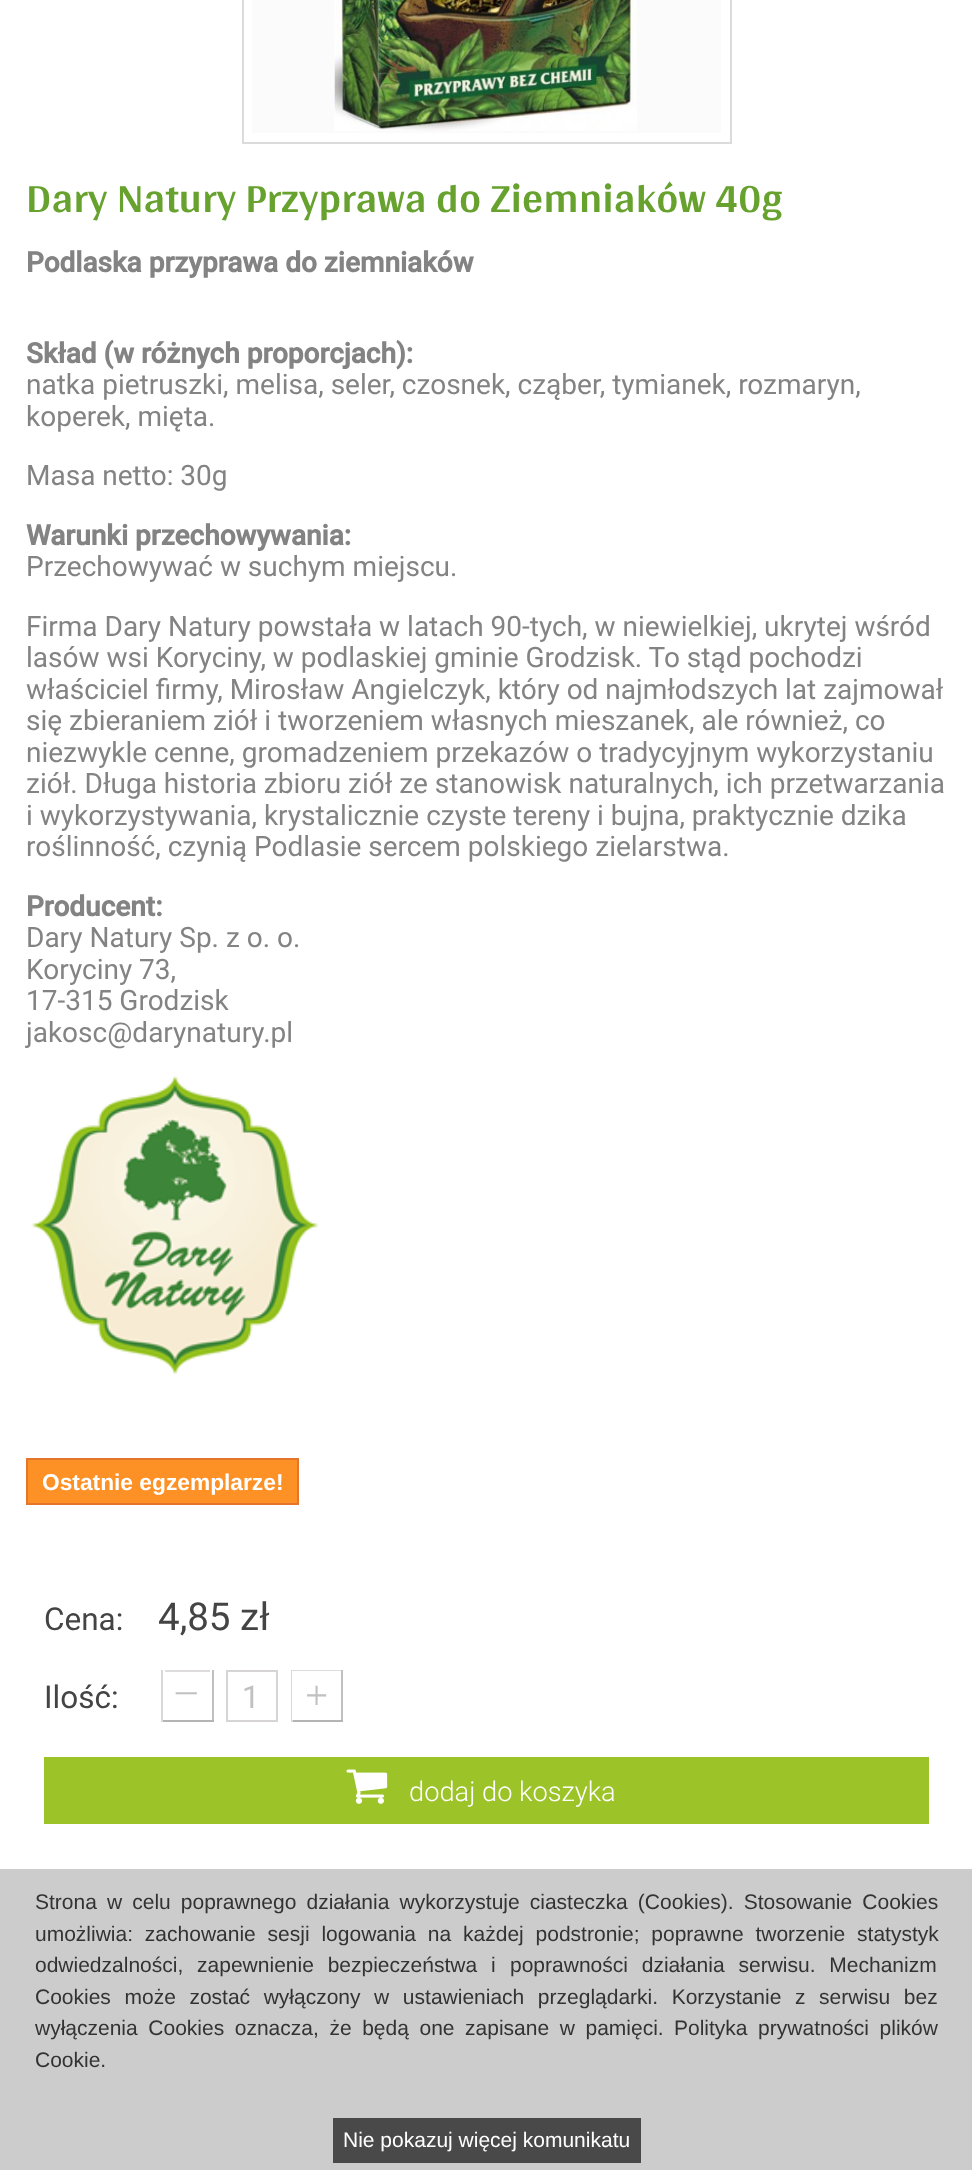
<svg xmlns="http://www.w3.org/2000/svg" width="972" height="2170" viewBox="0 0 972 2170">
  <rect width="100%" height="100%" fill="rgb(255,255,255)"/>
  <rect x="243" y="-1" width="488" height="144" fill="none" stroke="rgb(219,219,219)" stroke-width="2"/>
  <rect x="252" y="0" width="469" height="133" fill="rgb(251,251,251)"/>
  <image x="334" y="0" width="303" height="131" href="pic1.png"/>
  <text x="26" y="212" font-family="Arya" font-size="42" font-weight="bold" fill="rgb(103,161,46)">Dary Natury Przyprawa do Ziemniaków 40g</text>
  <g font-family="Roboto" font-size="28" font-weight="bold" fill="rgb(131,131,131)">
    <text x="26" y="272">Podlaska przyprawa do ziemniaków</text>
    <text x="26" y="363">Skład (w różnych proporcjach):</text>
  </g>
  <g font-family="Roboto" font-size="28" fill="rgb(131,131,131)">
    <text>
      <tspan x="26" y="394">natka pietruszki, melisa, seler, czosnek, cząber, tymianek, rozmaryn,</tspan>
      <tspan x="26" y="426">koperek, mięta.</tspan>
    </text>
    <text x="26" y="485">Masa netto: 30g</text>
  </g>
  <text x="26" y="545" font-family="Roboto" font-size="28" font-weight="bold" fill="rgb(131,131,131)">Warunki przechowywania:</text>
  <g font-family="Roboto" font-size="28" fill="rgb(131,131,131)">
    <text x="26" y="576">Przechowywać w suchym miejscu.</text>
    <text>
      <tspan x="26" y="636">Firma Dary Natury powstała w latach 90-tych, w niewielkiej, ukrytej wśród</tspan>
      <tspan x="26" y="667">lasów wsi Koryciny, w podlaskiej gminie Grodzisk. To stąd pochodzi</tspan>
      <tspan x="26" y="699">właściciel firmy, Mirosław Angielczyk, który od najmłodszych lat zajmował</tspan>
      <tspan x="26" y="730">się zbieraniem ziół i tworzeniem własnych mieszanek, ale również, co</tspan>
      <tspan x="26" y="762">niezwykle cenne, gromadzeniem przekazów o tradycyjnym wykorzystaniu</tspan>
      <tspan x="26" y="793">ziół. Długa historia zbioru ziół ze stanowisk naturalnych, ich przetwarzania</tspan>
      <tspan x="26" y="825">i wykorzystywania, krystalicznie czyste tereny i bujna, praktycznie dzika</tspan>
      <tspan x="26" y="856">roślinność, czynią Podlasie sercem polskiego zielarstwa.</tspan>
    </text>
  </g>
  <text x="26" y="916" font-family="Roboto" font-size="28" font-weight="bold" fill="rgb(131,131,131)">Producent:</text>
  <g font-family="Roboto" font-size="28" fill="rgb(131,131,131)">
    <text>
      <tspan x="26" y="947">Dary Natury Sp. z o. o.</tspan>
      <tspan x="26" y="979">Koryciny 73,</tspan>
      <tspan x="26" y="1010">17-315 Grodzisk</tspan>
      <tspan x="26" y="1042">jakosc@darynatury.pl</tspan>
    </text>
  </g>
  <image x="31" y="1076" width="288" height="298" href="pic2.png"/>
  <rect x="27" y="1459" width="271" height="45" fill="rgb(254,145,38)" stroke="rgb(228,117,43)" stroke-width="2"/>
  <text x="42" y="1490" font-family="Liberation Sans" font-size="22.75" font-weight="bold" fill="rgb(255,255,255)">Ostatnie egzemplarze!</text>
  <text x="44" y="1630" font-family="Roboto" font-size="31.5" fill="rgb(68,68,68)">Cena:</text>
  <text x="158" y="1630" font-family="Roboto" font-size="38.5" fill="rgb(68,68,68)">4,85 zł</text>
  <text x="44" y="1708" font-family="Roboto" font-size="31.5" fill="rgb(68,68,68)">Ilość:</text>
  <rect x="161" y="1670" width="53" height="2" fill="rgb(222,220,220)"/>
  <rect x="212" y="1670" width="2" height="52" fill="rgb(193,191,191)"/>
  <rect x="161" y="1720" width="53" height="2" fill="rgb(181,180,180)"/>
  <rect x="161" y="1670" width="2" height="52" fill="rgb(218,216,216)"/>
  <rect x="164" y="1667" width="47" height="47" fill="none" stroke="rgb(255,255,255)" stroke-width="2"/>
  <text x="176" y="1689" font-family="Liberation Serif" font-size="41" fill="rgb(193,193,193)">_</text>
  <rect x="227" y="1671" width="50" height="50" fill="none" stroke="rgb(214,212,212)" stroke-width="2"/>
  <text x="242" y="1708" font-family="Roboto" font-size="31.5" fill="rgb(193,193,193)">1</text>
  <rect x="291" y="1670" width="52" height="1" fill="rgb(222,220,220)"/>
  <rect x="341" y="1670" width="2" height="52" fill="rgb(193,191,191)"/>
  <rect x="291" y="1720" width="52" height="2" fill="rgb(181,180,180)"/>
  <rect x="291" y="1670" width="2" height="52" fill="rgb(218,216,216)"/>
  <rect x="293" y="1672" width="47" height="47" fill="none" stroke="rgb(255,255,255)" stroke-width="2"/>
  <text x="305" y="1709" font-family="Liberation Serif" font-size="41" fill="rgb(193,193,193)">+</text>
  <rect x="44" y="1757" width="885" height="67" fill="rgb(156,195,40)"/>
  <image x="346" y="1769" width="42" height="35" href="pic3.png"/>
  <text x="409" y="1801" font-family="Roboto" font-size="27.25" font-weight="300" fill="rgb(255,255,255)">dodaj do koszyka</text>
  <rect x="0" y="1869" width="972" height="301" fill="rgb(204,204,204)"/>
  <g font-family="Liberation Sans" font-size="21" fill="rgb(51,51,51)">
    <text>
      <tspan x="35" y="1909" word-spacing="4.25">Strona w celu poprawnego działania wykorzystuje ciasteczka (Cookies). Stosowanie Cookies</tspan>
      <tspan x="35" y="1941" word-spacing="6">umożliwia: zachowanie sesji logowania na każdej podstronie; poprawne tworzenie statystyk</tspan>
      <tspan x="35" y="1972" word-spacing="8">odwiedzalności, zapewnienie bezpieczeństwa i</tspan>
    </text>
    <text x="510" y="1972" word-spacing="8">poprawności działania serwisu. Mechanizm</text>
    <text>
      <tspan x="35" y="2004" word-spacing="7.75">Cookies może zostać wyłączony w ustawieniach przeglądarki. Korzystanie z serwisu bez</tspan>
      <tspan x="35" y="2035" word-spacing="4.75">wyłączenia Cookies oznacza, że będą one zapisane w pamięci.</tspan>
    </text>
    <text x="674" y="2035" word-spacing="4.75">Polityka prywatności plików</text>
    <text x="35" y="2067">Cookie.</text>
  </g>
  <rect x="333" y="2118" width="308" height="45" fill="rgb(73,73,73)"/>
  <text x="343" y="2147" font-family="Liberation Sans" font-size="21" fill="rgb(255,255,255)">Nie pokazuj więcej komunikatu</text>
</svg>
